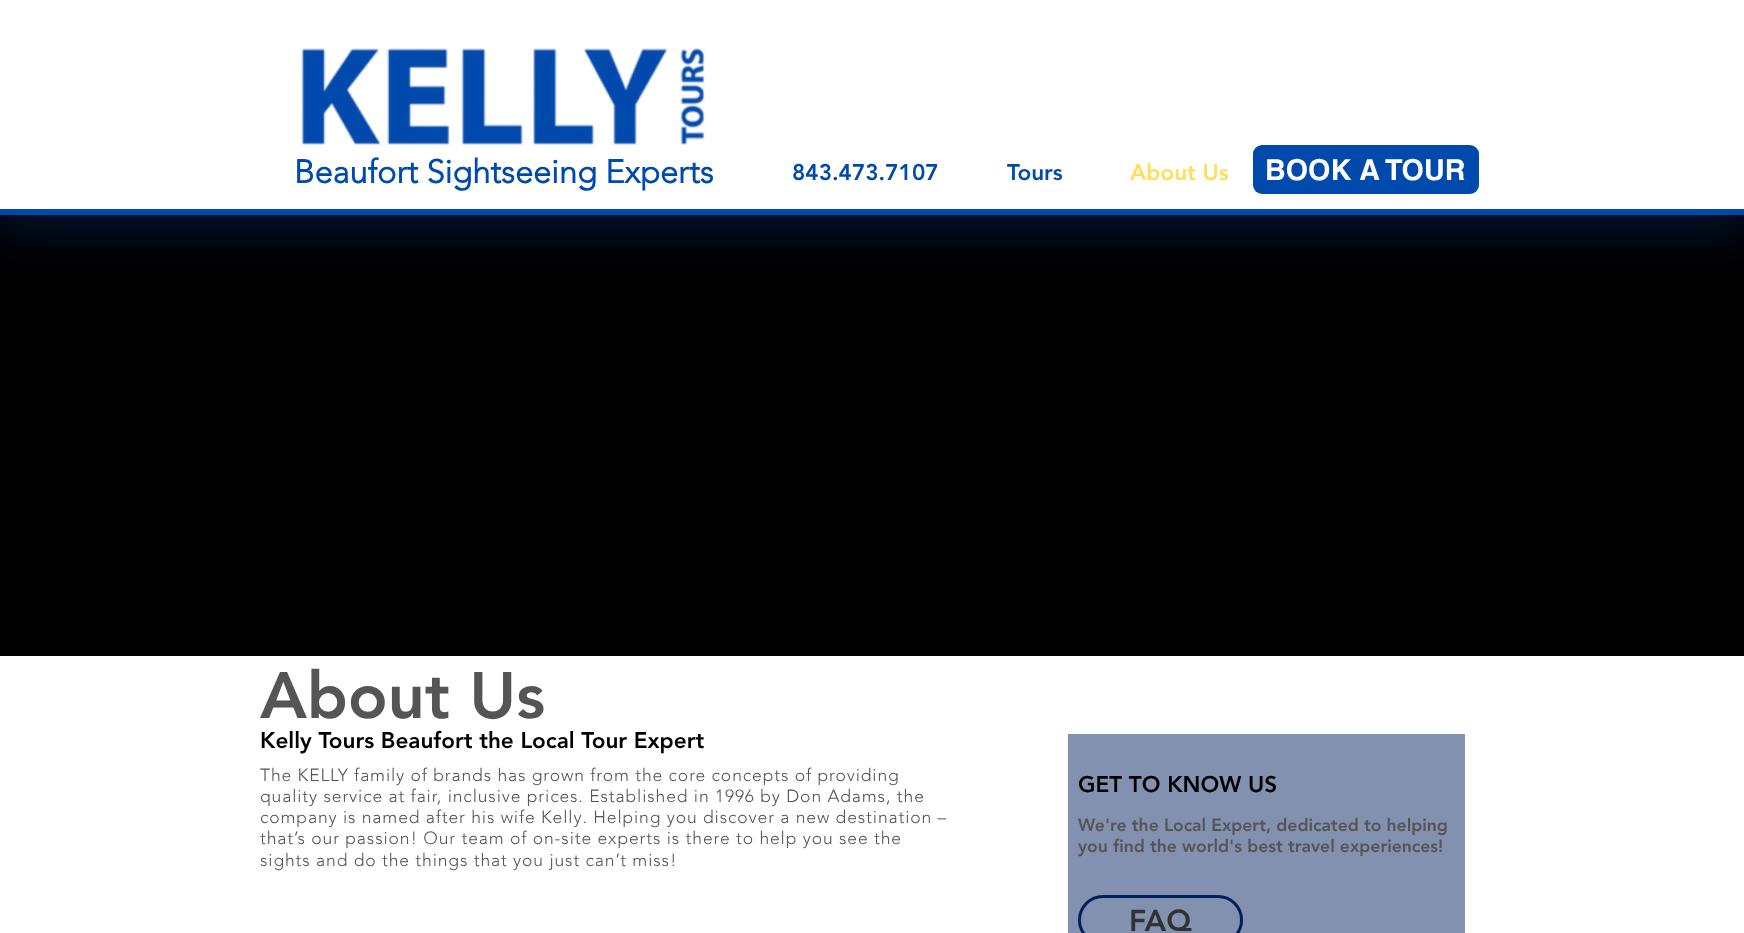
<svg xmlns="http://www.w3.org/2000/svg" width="1744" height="933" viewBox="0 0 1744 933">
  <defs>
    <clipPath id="clip1"><rect x="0" y="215" width="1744" height="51"/></clipPath>
  </defs>
  <rect width="100%" height="100%" fill="rgb(255,255,255)"/>
  <rect x="0" y="215" width="1744" height="441" fill="rgb(0,0,0)"/>
  <g clip-path="url(#clip1)">
    <rect x="-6" y="-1" width="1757" height="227" fill="rgba(0,74,173,0.33)" filter="blur(26px)"/>
  </g>
  <rect x="0" y="209" width="1744" height="6" fill="rgb(0,74,173)"/>
  <image x="301" y="48" width="404" height="97" href="pic1.png"/>
  <text x="294" y="183" font-family="'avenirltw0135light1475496'" font-size="32.5" font-weight="bold" fill="rgb(0,74,173)">Beaufort Sightseeing Experts</text>
  <g font-family="'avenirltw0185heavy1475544'" font-size="22.5" font-weight="900" fill="rgb(0,74,173)">
    <text x="792" y="180">843.473.7107</text>
    <text x="1007" y="180">Tours</text>
  </g>
  <text x="1130" y="180" font-family="'avenirltw0185heavy1475544'" font-size="22.5" font-weight="900" fill="rgb(255,222,89)">About Us</text>
  <rect x="1253" y="145" width="226" height="49" rx="9" fill="rgb(0,74,173)"/>
  <text x="1265" y="180" font-family="helvetica" font-size="28.75" font-weight="bold" fill="rgb(255,255,255)">BOOK A TOUR</text>
  <text x="260" y="718" font-family="'avenirltw0185heavy1475544'" font-size="65" font-weight="900" fill="rgb(85,85,85)">About Us</text>
  <text x="260" y="748" font-family="'avenirltw0185heavy1475544'" font-size="22.5" font-weight="900" fill="rgb(0,0,0)">Kelly Tours Beaufort the Local Tour Expert</text>
  <rect x="1068" y="734" width="397" height="199" fill="rgb(130,145,175)"/>
  <g font-family="'avenirltw0135light1475496'" font-size="17.5" font-weight="300" letter-spacing="0.88" fill="rgb(85,85,85)">
    <text>
      <tspan x="260" y="781">The KELLY family of brands has grown from the core concepts of providing</tspan>
      <tspan x="260" y="802">quality service at fair, inclusive prices. Established in 1996 by Don Adams, the</tspan>
      <tspan x="260" y="823">company is named after his wife Kelly. Helping you discover a new destination –</tspan>
      <tspan x="260" y="844">that’s our passion! Our team of on-site experts is there to help you see the</tspan>
      <tspan x="260" y="866">sights and do the things that you just can’t miss!</tspan>
    </text>
  </g>
  <text x="1078" y="792" font-family="'avenirltw0185heavy1475544'" font-size="22.5" font-weight="900" fill="rgb(0,0,0)">GET TO KNOW US</text>
  <g font-family="'avenirltw0185heavy1475544'" font-size="17.5" font-weight="900" fill="rgb(85,85,85)">
    <text>
      <tspan x="1078" y="831">We're the Local Expert, dedicated to helping</tspan>
      <tspan x="1078" y="852">you find the world's best travel experiences!</tspan>
    </text>
  </g>
  <rect x="1079.5" y="896.5" width="162" height="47" rx="23.5" fill="none" stroke="rgb(0,31,91)" stroke-width="3"/>
  <text x="1129" y="931" font-family="'avenirltw0185heavy1475544'" font-size="30" font-weight="900" fill="rgb(50,50,50)">FAQ</text>
</svg>
